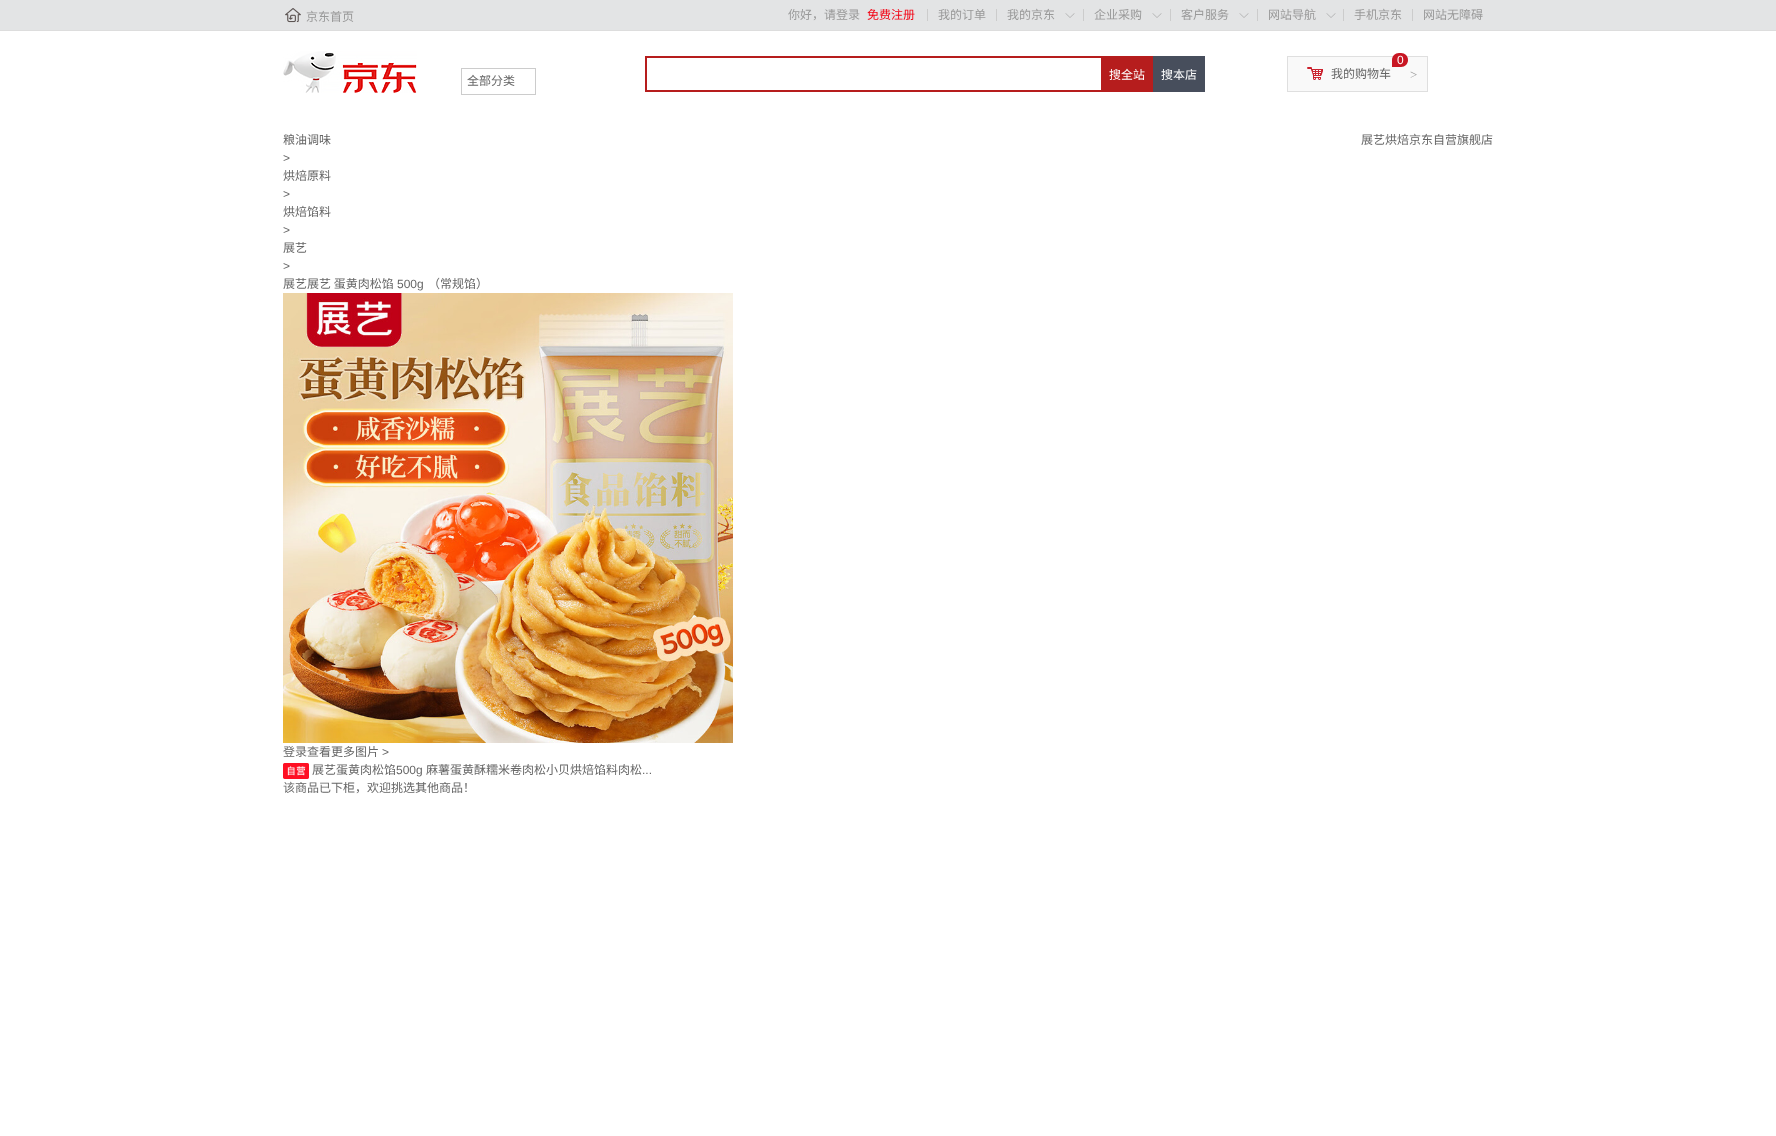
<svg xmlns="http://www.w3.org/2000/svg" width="1776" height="1136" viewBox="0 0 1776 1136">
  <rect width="100%" height="100%" fill="rgb(255,255,255)"/>
  <rect x="0" y="0" width="1776" height="30" fill="rgb(227,228,229)"/>
  <rect x="0" y="30" width="1776" height="1" fill="rgb(221,221,221)"/>
  <image x="285" y="8" width="16" height="15" href="pic1.png"/>
  <g font-family="Noto Sans CJK SC" font-size="12" fill="rgb(153,153,153)">
    <text x="306" y="21">京东首页</text>
    <text x="788" y="19">你好，请登录</text>
  </g>
  <text x="867" y="19" font-family="Noto Sans CJK SC" font-size="12" fill="rgb(243,2,19)">免费注册</text>
  <rect x="927" y="9" width="1" height="12" fill="rgb(204,204,204)"/>
  <text x="938" y="19" font-family="Noto Sans CJK SC" font-size="12" fill="rgb(153,153,153)">我的订单</text>
  <rect x="996" y="9" width="1" height="12" fill="rgb(204,204,204)"/>
  <text x="1007" y="19" font-family="Noto Sans CJK SC" font-size="12" fill="rgb(153,153,153)">我的京东</text>
  <image x="1065" y="13" width="10" height="5" href="pic2.png"/>
  <rect x="1083" y="9" width="1" height="12" fill="rgb(204,204,204)"/>
  <text x="1094" y="19" font-family="Noto Sans CJK SC" font-size="12" fill="rgb(153,153,153)">企业采购</text>
  <image x="1152" y="13" width="10" height="5" href="pic2.png"/>
  <rect x="1170" y="9" width="1" height="12" fill="rgb(204,204,204)"/>
  <text x="1181" y="19" font-family="Noto Sans CJK SC" font-size="12" fill="rgb(153,153,153)">客户服务</text>
  <image x="1239" y="13" width="10" height="5" href="pic2.png"/>
  <rect x="1257" y="9" width="1" height="12" fill="rgb(204,204,204)"/>
  <text x="1268" y="19" font-family="Noto Sans CJK SC" font-size="12" fill="rgb(153,153,153)">网站导航</text>
  <image x="1326" y="13" width="10" height="5" href="pic2.png"/>
  <rect x="1343" y="9" width="1" height="12" fill="rgb(204,204,204)"/>
  <text x="1354" y="19" font-family="Noto Sans CJK SC" font-size="12" fill="rgb(153,153,153)">手机京东</text>
  <rect x="1412" y="9" width="1" height="12" fill="rgb(204,204,204)"/>
  <text x="1423" y="19" font-family="Noto Sans CJK SC" font-size="12" fill="rgb(153,153,153)">网站无障碍</text>
  <image x="283" y="51" width="134" height="42" href="pic3.png"/>
  <rect x="461.5" y="68.5" width="74" height="26" fill="none" stroke="rgb(204,204,204)"/>
  <text x="467" y="85" font-family="Noto Sans CJK SC" font-size="12" fill="rgb(102,102,102)">全部分类</text>
  <rect x="645" y="56" width="456" height="2" fill="rgb(182,29,29)"/>
  <rect x="645" y="90" width="456" height="2" fill="rgb(182,29,29)"/>
  <rect x="645" y="56" width="2" height="36" fill="rgb(182,29,29)"/>
  <rect x="1101" y="56" width="52" height="36" fill="rgb(182,29,29)"/>
  <text x="1109" y="79" font-family="Noto Sans CJK SC" font-size="12" fill="rgb(255,255,255)">搜全站</text>
  <rect x="1153" y="56" width="52" height="36" fill="rgb(71,78,92)"/>
  <text x="1161" y="79" font-family="Noto Sans CJK SC" font-size="12" fill="rgb(255,255,255)">搜本店</text>
  <rect x="1287.5" y="56.5" width="140" height="35" fill="rgb(249,249,249)" stroke="rgb(223,223,223)"/>
  <path d="M1399 53H1401C1405 53 1408 56 1408 60C1408 64 1405 67 1401 67H1392V60C1392 56 1395 53 1399 53Z" fill="rgb(200,22,35)"/>
  <text x="1397" y="64" font-family="Liberation Sans" font-size="12" fill="rgb(255,255,255)">0</text>
  <image x="1307" y="67" width="16" height="13" href="pic4.png"/>
  <text x="1331" y="78" font-family="Noto Sans CJK SC" font-size="12" fill="rgb(102,102,102)">我的购物车</text>
  <text x="1410" y="79" font-family="Liberation Serif" font-size="13" fill="rgb(153,153,153)">&gt;</text>
  <text x="283" y="144" font-family="Noto Sans CJK SC" font-size="12" fill="rgb(102,102,102)">粮油调味</text>
  <text x="283" y="162" font-family="Liberation Sans" font-size="12" fill="rgb(102,102,102)">&gt;</text>
  <text x="283" y="180" font-family="Noto Sans CJK SC" font-size="12" fill="rgb(102,102,102)">烘焙原料</text>
  <text x="283" y="198" font-family="Liberation Sans" font-size="12" fill="rgb(102,102,102)">&gt;</text>
  <text x="283" y="216" font-family="Noto Sans CJK SC" font-size="12" fill="rgb(102,102,102)">烘焙馅料</text>
  <text x="283" y="234" font-family="Liberation Sans" font-size="12" fill="rgb(102,102,102)">&gt;</text>
  <text x="283" y="252" font-family="Noto Sans CJK SC" font-size="12" fill="rgb(102,102,102)">展艺</text>
  <text x="283" y="270" font-family="Liberation Sans" font-size="12" fill="rgb(102,102,102)">&gt;</text>
  <text x="283" y="288" font-family="Noto Sans CJK SC" font-size="12" fill="rgb(102,102,102)">展艺展艺 蛋黄肉松馅</text>
  <text x="397" y="288" font-family="Liberation Sans" font-size="12" fill="rgb(102,102,102)">500g</text>
  <g font-family="Noto Sans CJK SC" font-size="12" fill="rgb(102,102,102)">
    <text x="428" y="288">（常规馅）</text>
    <text x="1361" y="144">展艺烘焙京东自营旗舰店</text>
  </g>
  <image x="283" y="293" width="450" height="450" href="pic5.png"/>
  <text x="283" y="756" font-family="Noto Sans CJK SC" font-size="12" fill="rgb(102,102,102)">登录查看更多图片</text>
  <text x="382" y="756" font-family="Liberation Sans" font-size="12" fill="rgb(102,102,102)">&gt;</text>
  <image x="283" y="763" width="26" height="16" href="pic6.png"/>
  <text x="312" y="774" font-family="Noto Sans CJK SC" font-size="12" fill="rgb(102,102,102)">展艺蛋黄肉松馅</text>
  <text x="396" y="774" font-family="Liberation Sans" font-size="12" fill="rgb(102,102,102)">500g</text>
  <text x="426" y="774" font-family="Noto Sans CJK SC" font-size="12" fill="rgb(102,102,102)">麻薯蛋黄酥糯米卷肉松小贝烘焙馅料肉松</text>
  <text x="642" y="774" font-family="Liberation Sans" font-size="12" fill="rgb(102,102,102)">...</text>
  <text x="283" y="792" font-family="Noto Sans CJK SC" font-size="12" fill="rgb(102,102,102)">该商品已下柜，欢迎挑选其他商品！</text>
</svg>
